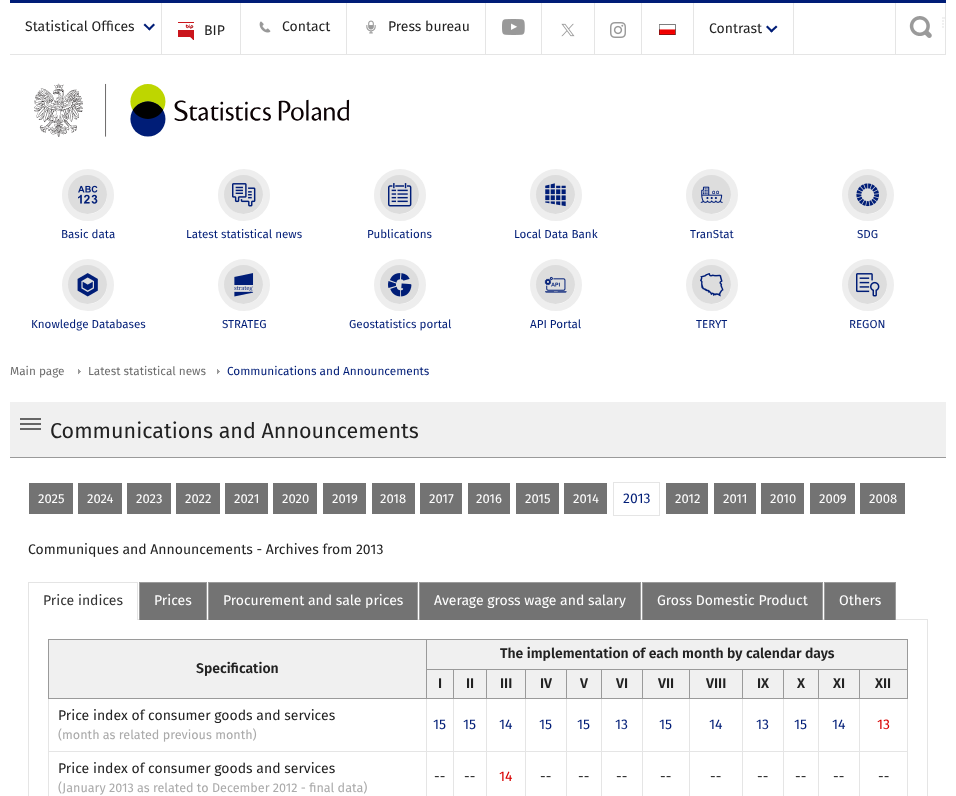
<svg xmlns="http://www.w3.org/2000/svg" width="956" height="796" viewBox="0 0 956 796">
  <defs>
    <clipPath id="clip1"><rect x="28" y="582" width="900" height="38"/></clipPath>
  </defs>
  <rect width="100%" height="100%" fill="rgb(255,255,255)"/>
  <rect x="10" y="0" width="936" height="3" fill="rgb(0,29,119)"/>
  <rect x="10" y="54" width="936" height="1" fill="rgb(229,229,229)"/>
  <rect x="161" y="3" width="1" height="51" fill="rgb(229,229,229)"/>
  <text x="25" y="31" font-family="Fira Sans" font-size="14" fill="rgb(34,34,34)">Statistical Offices</text>
  <path d="M153.5 23.5L155 25L149.5 30.5L148 29Z" fill="rgb(0,29,119)"/>
  <path d="M145 23.5L150.5 29L149.5 30.5L143.5 25Z" fill="rgb(0,29,119)"/>
  <rect x="240" y="3" width="1" height="51" fill="rgb(229,229,229)"/>
  <image x="178" y="22" width="16" height="18" href="pic1.png"/>
  <text x="204" y="35" font-family="Fira Sans" font-size="14" fill="rgb(34,34,34)">BIP</text>
  <rect x="346" y="3" width="1" height="51" fill="rgb(229,229,229)"/>
  <image x="259" y="21" width="12" height="12" href="pic2.png"/>
  <text x="282" y="31" font-family="Fira Sans" font-size="14" fill="rgb(34,34,34)">Contact</text>
  <rect x="485" y="3" width="1" height="51" fill="rgb(229,229,229)"/>
  <image x="366" y="20" width="10" height="14" href="pic3.png"/>
  <text x="388" y="31" font-family="Fira Sans" font-size="14" fill="rgb(34,34,34)">Press bureau</text>
  <rect x="541" y="3" width="1" height="51" fill="rgb(229,229,229)"/>
  <image x="502" y="19" width="23" height="16" href="pic4.png"/>
  <rect x="594" y="3" width="1" height="51" fill="rgb(229,229,229)"/>
  <image x="561" y="23" width="14" height="14" href="pic5.png"/>
  <rect x="641" y="3" width="1" height="51" fill="rgb(229,229,229)"/>
  <image x="610" y="22" width="16" height="16" href="pic6.png"/>
  <rect x="693" y="3" width="1" height="51" fill="rgb(229,229,229)"/>
  <image x="659" y="24" width="17" height="11" href="pic7.png"/>
  <rect x="793" y="3" width="1" height="51" fill="rgb(229,229,229)"/>
  <text x="709" y="33" font-family="Fira Sans" font-size="14" fill="rgb(34,34,34)">Contrast</text>
  <path d="M776 25.5L777.5 27L771.5 32.5L770 31Z" fill="rgb(0,29,119)"/>
  <path d="M767.5 25.5L773 31L771.5 32.5L766 27Z" fill="rgb(0,29,119)"/>
  <image x="909" y="16" width="36" height="22" href="pic8.png"/>
  <rect x="945" y="3" width="1" height="51" fill="rgb(229,229,229)"/>
  <rect x="895" y="3" width="1" height="51" fill="rgb(229,229,229)"/>
  <image x="34" y="83" width="316" height="54" href="pic9.png"/>
  <circle cx="88" cy="195" r="22.5" fill="none" stroke="rgb(238,238,238)" stroke-width="7"/>
  <circle cx="87.5" cy="194.5" r="19.5" fill="rgb(221,221,221)"/>
  <image x="78" y="185" width="20" height="19" href="pic10.png"/>
  <text x="61" y="238" font-family="Fira Sans" font-size="11.6" fill="rgb(0,29,119)">Basic data</text>
  <circle cx="244" cy="195" r="22.5" fill="none" stroke="rgb(238,238,238)" stroke-width="7"/>
  <circle cx="243.5" cy="194.5" r="19.5" fill="rgb(221,221,221)"/>
  <image x="232" y="183" width="24" height="24" href="pic11.png"/>
  <text x="186" y="238" font-family="Fira Sans" font-size="11.6" fill="rgb(0,29,119)">Latest statistical news</text>
  <circle cx="400" cy="195" r="22.5" fill="none" stroke="rgb(238,238,238)" stroke-width="7"/>
  <circle cx="399.5" cy="194.5" r="19.5" fill="rgb(221,221,221)"/>
  <image x="388" y="183" width="24" height="24" href="pic12.png"/>
  <text x="367" y="238" font-family="Fira Sans" font-size="11.6" fill="rgb(0,29,119)">Publications</text>
  <circle cx="556" cy="195" r="22.5" fill="none" stroke="rgb(238,238,238)" stroke-width="7"/>
  <circle cx="555.5" cy="194.5" r="19.5" fill="rgb(221,221,221)"/>
  <image x="545" y="183" width="21" height="24" href="pic13.png"/>
  <text x="514" y="238" font-family="Fira Sans" font-size="11.6" fill="rgb(0,29,119)">Local Data Bank</text>
  <circle cx="712" cy="195" r="22.5" fill="none" stroke="rgb(238,238,238)" stroke-width="7"/>
  <circle cx="711.5" cy="194.5" r="19.5" fill="rgb(221,221,221)"/>
  <image x="700" y="186" width="23" height="17" href="pic14.png"/>
  <text x="690" y="238" font-family="Fira Sans" font-size="11.6" fill="rgb(0,29,119)">TranStat</text>
  <circle cx="868" cy="195" r="22.5" fill="none" stroke="rgb(238,238,238)" stroke-width="7"/>
  <circle cx="867.5" cy="194.5" r="19.5" fill="rgb(221,221,221)"/>
  <image x="856" y="183" width="23" height="24" href="pic15.png"/>
  <text x="857" y="238" font-family="Fira Sans" font-size="11.6" fill="rgb(0,29,119)">SDG</text>
  <circle cx="88" cy="285" r="22.5" fill="none" stroke="rgb(238,238,238)" stroke-width="7"/>
  <circle cx="87.5" cy="284.5" r="19.5" fill="rgb(221,221,221)"/>
  <image x="77" y="273" width="21" height="24" href="pic16.png"/>
  <text x="31" y="328" font-family="Fira Sans" font-size="11.6" fill="rgb(0,29,119)">Knowledge Databases</text>
  <circle cx="244" cy="285" r="22.5" fill="none" stroke="rgb(238,238,238)" stroke-width="7"/>
  <circle cx="243.5" cy="284.5" r="19.5" fill="rgb(221,221,221)"/>
  <image x="234" y="273" width="20" height="24" href="pic17.png"/>
  <text x="222" y="328" font-family="Fira Sans" font-size="11.6" fill="rgb(0,29,119)">STRATEG</text>
  <circle cx="400" cy="285" r="22.5" fill="none" stroke="rgb(238,238,238)" stroke-width="7"/>
  <circle cx="399.5" cy="284.5" r="19.5" fill="rgb(221,221,221)"/>
  <image x="388" y="273" width="24" height="24" href="pic18.png"/>
  <text x="349" y="328" font-family="Fira Sans" font-size="11.6" fill="rgb(0,29,119)">Geostatistics portal</text>
  <circle cx="556" cy="285" r="22.5" fill="none" stroke="rgb(238,238,238)" stroke-width="7"/>
  <circle cx="555.5" cy="284.5" r="19.5" fill="rgb(221,221,221)"/>
  <image x="544" y="276" width="23" height="17" href="pic19.png"/>
  <text x="530" y="328" font-family="Fira Sans" font-size="11.6" fill="rgb(0,29,119)">API Portal</text>
  <circle cx="712" cy="285" r="22.5" fill="none" stroke="rgb(238,238,238)" stroke-width="7"/>
  <circle cx="711.5" cy="284.5" r="19.5" fill="rgb(221,221,221)"/>
  <image x="700" y="273" width="24" height="24" href="pic20.png"/>
  <text x="696" y="328" font-family="Fira Sans" font-size="11.6" fill="rgb(0,29,119)">TERYT</text>
  <circle cx="868" cy="285" r="22.5" fill="none" stroke="rgb(238,238,238)" stroke-width="7"/>
  <circle cx="867.5" cy="284.5" r="19.5" fill="rgb(221,221,221)"/>
  <image x="856" y="273" width="24" height="24" href="pic21.png"/>
  <text x="849" y="328" font-family="Fira Sans" font-size="11.6" fill="rgb(0,29,119)">REGON</text>
  <text x="10" y="375" font-family="Fira Sans" font-size="11.8" fill="rgb(110,110,110)">Main page</text>
  <image x="78" y="369" width="3" height="6" href="pic22.png"/>
  <text x="88" y="375" font-family="Fira Sans" font-size="11.8" fill="rgb(110,110,110)">Latest statistical news</text>
  <image x="217" y="369" width="3" height="6" href="pic22.png"/>
  <text x="227" y="375" font-family="Fira Sans" font-size="11.8" fill="rgb(0,29,119)">Communications and Announcements</text>
  <rect x="10" y="402" width="936" height="55" fill="rgb(240,240,240)"/>
  <rect x="10" y="457" width="936" height="1" fill="rgb(154,154,154)"/>
  <rect x="20" y="428" width="21" height="2" fill="rgb(102,102,102)"/>
  <rect x="20" y="423" width="21" height="2" fill="rgb(102,102,102)"/>
  <rect x="20" y="418" width="21" height="2" fill="rgb(102,102,102)"/>
  <text x="50" y="438" font-family="Fira Sans" font-size="21.5" fill="rgb(34,34,34)">Communications and Announcements</text>
  <rect x="29" y="483" width="44" height="31" fill="rgb(115,115,115)"/>
  <text x="38" y="503" font-family="Fira Sans" font-size="13" fill="rgb(255,255,255)">2025</text>
  <rect x="78" y="483" width="44" height="31" fill="rgb(115,115,115)"/>
  <text x="87" y="503" font-family="Fira Sans" font-size="13" fill="rgb(255,255,255)">2024</text>
  <rect x="127" y="483" width="44" height="31" fill="rgb(115,115,115)"/>
  <text x="136" y="503" font-family="Fira Sans" font-size="13" fill="rgb(255,255,255)">2023</text>
  <rect x="176" y="483" width="44" height="31" fill="rgb(115,115,115)"/>
  <text x="185" y="503" font-family="Fira Sans" font-size="13" fill="rgb(255,255,255)">2022</text>
  <rect x="225" y="483" width="43" height="31" fill="rgb(115,115,115)"/>
  <text x="234" y="503" font-family="Fira Sans" font-size="13" fill="rgb(255,255,255)">2021</text>
  <rect x="273" y="483" width="44" height="31" fill="rgb(115,115,115)"/>
  <text x="282" y="503" font-family="Fira Sans" font-size="13" fill="rgb(255,255,255)">2020</text>
  <rect x="323" y="483" width="43" height="31" fill="rgb(115,115,115)"/>
  <text x="332" y="503" font-family="Fira Sans" font-size="13" fill="rgb(255,255,255)">2019</text>
  <rect x="372" y="483" width="43" height="31" fill="rgb(115,115,115)"/>
  <text x="380" y="503" font-family="Fira Sans" font-size="13" fill="rgb(255,255,255)">2018</text>
  <rect x="420" y="483" width="42" height="31" fill="rgb(115,115,115)"/>
  <text x="429" y="503" font-family="Fira Sans" font-size="13" fill="rgb(255,255,255)">2017</text>
  <rect x="468" y="483" width="42" height="31" fill="rgb(115,115,115)"/>
  <text x="476" y="503" font-family="Fira Sans" font-size="13" fill="rgb(255,255,255)">2016</text>
  <rect x="516" y="483" width="43" height="31" fill="rgb(115,115,115)"/>
  <text x="525" y="503" font-family="Fira Sans" font-size="13" fill="rgb(255,255,255)">2015</text>
  <rect x="564" y="483" width="43" height="31" fill="rgb(115,115,115)"/>
  <text x="573" y="503" font-family="Fira Sans" font-size="13" fill="rgb(255,255,255)">2014</text>
  <rect x="613.5" y="482.5" width="46" height="33" fill="none" stroke="rgb(229,229,229)"/>
  <text x="623" y="503" font-family="Fira Sans" font-size="14" fill="rgb(0,29,119)">2013</text>
  <rect x="666" y="483" width="42" height="31" fill="rgb(115,115,115)"/>
  <text x="675" y="503" font-family="Fira Sans" font-size="13" fill="rgb(255,255,255)">2012</text>
  <rect x="714" y="483" width="42" height="31" fill="rgb(115,115,115)"/>
  <text x="723" y="503" font-family="Fira Sans" font-size="13" fill="rgb(255,255,255)">2011</text>
  <rect x="761" y="483" width="43" height="31" fill="rgb(115,115,115)"/>
  <text x="770" y="503" font-family="Fira Sans" font-size="13" fill="rgb(255,255,255)">2010</text>
  <rect x="810" y="483" width="45" height="31" fill="rgb(115,115,115)"/>
  <text x="819" y="503" font-family="Fira Sans" font-size="13" fill="rgb(255,255,255)">2009</text>
  <rect x="860" y="483" width="45" height="31" fill="rgb(115,115,115)"/>
  <text x="869" y="503" font-family="Fira Sans" font-size="13" fill="rgb(255,255,255)">2008</text>
  <text x="28" y="554" font-family="Fira Sans" font-size="14" fill="rgb(34,34,34)">Communiques and Announcements - Archives from 2013</text>
  <rect x="28.5" y="619.5" width="899" height="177" fill="none" stroke="rgb(229,229,229)"/>
  <rect x="29" y="619" width="108" height="1" fill="rgb(255,255,255)"/>
  <rect x="28" y="582" width="110" height="1" fill="rgb(228,228,228)"/>
  <rect x="137" y="582" width="1" height="38" fill="rgb(228,228,228)"/>
  <rect x="28" y="582" width="1" height="38" fill="rgb(228,228,228)"/>
  <text x="43" y="605" font-family="Fira Sans" font-size="14" fill="rgb(51,51,51)">Price indices</text>
  <rect x="140" y="583" width="66" height="37" fill="rgb(115,115,115)"/>
  <g clip-path="url(#clip1)">
    <rect x="139.5" y="582.5" width="67" height="38" fill="none" stroke="rgb(155,155,155)"/>
  </g>
  <text x="154" y="605" font-family="Fira Sans" font-size="14" fill="rgb(255,255,255)">Prices</text>
  <rect x="209" y="583" width="208" height="37" fill="rgb(115,115,115)"/>
  <g clip-path="url(#clip1)">
    <rect x="208.5" y="582.5" width="209" height="38" fill="none" stroke="rgb(155,155,155)"/>
  </g>
  <text x="223" y="605" font-family="Fira Sans" font-size="14" fill="rgb(255,255,255)">Procurement and sale prices</text>
  <rect x="420" y="583" width="220" height="37" fill="rgb(115,115,115)"/>
  <g clip-path="url(#clip1)">
    <rect x="419.5" y="582.5" width="221" height="38" fill="none" stroke="rgb(155,155,155)"/>
  </g>
  <text x="434" y="605" font-family="Fira Sans" font-size="14" fill="rgb(255,255,255)">Average gross wage and salary</text>
  <rect x="643" y="583" width="179" height="37" fill="rgb(115,115,115)"/>
  <g clip-path="url(#clip1)">
    <rect x="642.5" y="582.5" width="180" height="38" fill="none" stroke="rgb(155,155,155)"/>
  </g>
  <text x="657" y="605" font-family="Fira Sans" font-size="14" fill="rgb(255,255,255)">Gross Domestic Product</text>
  <rect x="825" y="583" width="70" height="37" fill="rgb(115,115,115)"/>
  <g clip-path="url(#clip1)">
    <rect x="824.5" y="582.5" width="71" height="38" fill="none" stroke="rgb(155,155,155)"/>
  </g>
  <text x="839" y="605" font-family="Fira Sans" font-size="14" fill="rgb(255,255,255)">Others</text>
  <rect x="427" y="640" width="480" height="29" fill="rgb(240,240,240)"/>
  <rect x="426" y="639" width="482" height="1" fill="rgb(154,154,154)"/>
  <rect x="859" y="669" width="49" height="1" fill="rgb(154,154,154)"/>
  <rect x="859" y="751" width="49" height="1" fill="rgb(229,229,229)"/>
  <rect x="907" y="698" width="1" height="98" fill="rgb(229,229,229)"/>
  <rect x="907" y="669" width="1" height="30" fill="rgb(154,154,154)"/>
  <rect x="907" y="639" width="1" height="31" fill="rgb(154,154,154)"/>
  <rect x="859" y="751" width="1" height="45" fill="rgb(229,229,229)"/>
  <rect x="818" y="751" width="42" height="1" fill="rgb(229,229,229)"/>
  <rect x="859" y="698" width="1" height="54" fill="rgb(229,229,229)"/>
  <rect x="859" y="698" width="49" height="1" fill="rgb(154,154,154)"/>
  <rect x="859" y="669" width="1" height="30" fill="rgb(154,154,154)"/>
  <rect x="818" y="669" width="42" height="1" fill="rgb(154,154,154)"/>
  <rect x="818" y="751" width="1" height="45" fill="rgb(229,229,229)"/>
  <rect x="783" y="751" width="36" height="1" fill="rgb(229,229,229)"/>
  <rect x="818" y="698" width="1" height="54" fill="rgb(229,229,229)"/>
  <rect x="818" y="698" width="42" height="1" fill="rgb(154,154,154)"/>
  <rect x="818" y="669" width="1" height="30" fill="rgb(154,154,154)"/>
  <rect x="783" y="669" width="36" height="1" fill="rgb(154,154,154)"/>
  <rect x="783" y="751" width="1" height="45" fill="rgb(229,229,229)"/>
  <rect x="742" y="751" width="42" height="1" fill="rgb(229,229,229)"/>
  <rect x="783" y="698" width="1" height="54" fill="rgb(229,229,229)"/>
  <rect x="783" y="698" width="36" height="1" fill="rgb(154,154,154)"/>
  <rect x="783" y="669" width="1" height="30" fill="rgb(154,154,154)"/>
  <rect x="742" y="669" width="42" height="1" fill="rgb(154,154,154)"/>
  <rect x="742" y="751" width="1" height="45" fill="rgb(229,229,229)"/>
  <rect x="689" y="751" width="54" height="1" fill="rgb(229,229,229)"/>
  <rect x="742" y="698" width="1" height="54" fill="rgb(229,229,229)"/>
  <rect x="742" y="698" width="42" height="1" fill="rgb(154,154,154)"/>
  <rect x="742" y="669" width="1" height="30" fill="rgb(154,154,154)"/>
  <rect x="689" y="669" width="54" height="1" fill="rgb(154,154,154)"/>
  <rect x="689" y="751" width="1" height="45" fill="rgb(229,229,229)"/>
  <rect x="642" y="751" width="48" height="1" fill="rgb(229,229,229)"/>
  <rect x="689" y="698" width="1" height="54" fill="rgb(229,229,229)"/>
  <rect x="689" y="698" width="54" height="1" fill="rgb(154,154,154)"/>
  <rect x="689" y="669" width="1" height="30" fill="rgb(154,154,154)"/>
  <rect x="642" y="669" width="48" height="1" fill="rgb(154,154,154)"/>
  <rect x="642" y="751" width="1" height="45" fill="rgb(229,229,229)"/>
  <rect x="601" y="751" width="42" height="1" fill="rgb(229,229,229)"/>
  <rect x="642" y="698" width="1" height="54" fill="rgb(229,229,229)"/>
  <rect x="642" y="698" width="48" height="1" fill="rgb(154,154,154)"/>
  <rect x="642" y="669" width="1" height="30" fill="rgb(154,154,154)"/>
  <rect x="601" y="669" width="42" height="1" fill="rgb(154,154,154)"/>
  <rect x="601" y="751" width="1" height="45" fill="rgb(229,229,229)"/>
  <rect x="566" y="751" width="36" height="1" fill="rgb(229,229,229)"/>
  <rect x="601" y="698" width="1" height="54" fill="rgb(229,229,229)"/>
  <rect x="601" y="698" width="42" height="1" fill="rgb(154,154,154)"/>
  <rect x="601" y="669" width="1" height="30" fill="rgb(154,154,154)"/>
  <rect x="566" y="669" width="36" height="1" fill="rgb(154,154,154)"/>
  <rect x="566" y="751" width="1" height="45" fill="rgb(229,229,229)"/>
  <rect x="525" y="751" width="42" height="1" fill="rgb(229,229,229)"/>
  <rect x="566" y="698" width="1" height="54" fill="rgb(229,229,229)"/>
  <rect x="566" y="698" width="36" height="1" fill="rgb(154,154,154)"/>
  <rect x="566" y="669" width="1" height="30" fill="rgb(154,154,154)"/>
  <rect x="525" y="669" width="42" height="1" fill="rgb(154,154,154)"/>
  <rect x="525" y="751" width="1" height="45" fill="rgb(229,229,229)"/>
  <rect x="486" y="751" width="40" height="1" fill="rgb(229,229,229)"/>
  <rect x="525" y="698" width="1" height="54" fill="rgb(229,229,229)"/>
  <rect x="525" y="698" width="42" height="1" fill="rgb(154,154,154)"/>
  <rect x="525" y="669" width="1" height="30" fill="rgb(154,154,154)"/>
  <rect x="486" y="669" width="40" height="1" fill="rgb(154,154,154)"/>
  <rect x="486" y="751" width="1" height="45" fill="rgb(229,229,229)"/>
  <rect x="453" y="751" width="34" height="1" fill="rgb(229,229,229)"/>
  <rect x="486" y="698" width="1" height="54" fill="rgb(229,229,229)"/>
  <rect x="486" y="698" width="40" height="1" fill="rgb(154,154,154)"/>
  <rect x="486" y="669" width="1" height="30" fill="rgb(154,154,154)"/>
  <rect x="453" y="669" width="34" height="1" fill="rgb(154,154,154)"/>
  <rect x="453" y="751" width="1" height="45" fill="rgb(229,229,229)"/>
  <rect x="426" y="751" width="28" height="1" fill="rgb(229,229,229)"/>
  <rect x="453" y="698" width="1" height="54" fill="rgb(229,229,229)"/>
  <rect x="453" y="698" width="34" height="1" fill="rgb(154,154,154)"/>
  <rect x="453" y="669" width="1" height="30" fill="rgb(154,154,154)"/>
  <rect x="426" y="669" width="28" height="1" fill="rgb(154,154,154)"/>
  <rect x="426" y="751" width="1" height="45" fill="rgb(229,229,229)"/>
  <rect x="48" y="751" width="379" height="1" fill="rgb(229,229,229)"/>
  <rect x="426" y="698" width="1" height="54" fill="rgb(229,229,229)"/>
  <rect x="426" y="698" width="28" height="1" fill="rgb(154,154,154)"/>
  <rect x="426" y="669" width="1" height="30" fill="rgb(154,154,154)"/>
  <rect x="426" y="639" width="1" height="31" fill="rgb(154,154,154)"/>
  <text x="500" y="658" font-family="Fira Sans" font-size="14" font-weight="600" fill="rgb(34,34,34)">The implementation of each month by calendar days</text>
  <rect x="49" y="640" width="377" height="58" fill="rgb(240,240,240)"/>
  <rect x="48" y="639" width="379" height="1" fill="rgb(154,154,154)"/>
  <rect x="48" y="698" width="1" height="98" fill="rgb(229,229,229)"/>
  <rect x="48" y="698" width="379" height="1" fill="rgb(154,154,154)"/>
  <rect x="48" y="639" width="1" height="60" fill="rgb(154,154,154)"/>
  <text x="196" y="673" font-family="Fira Sans" font-size="14" font-weight="600" fill="rgb(34,34,34)">Specification</text>
  <rect x="427" y="670" width="26" height="28" fill="rgb(240,240,240)"/>
  <text x="438" y="688" font-family="Fira Sans" font-size="14" font-weight="600" fill="rgb(34,34,34)">I</text>
  <rect x="454" y="670" width="32" height="28" fill="rgb(240,240,240)"/>
  <text x="466" y="688" font-family="Fira Sans" font-size="14" font-weight="600" fill="rgb(34,34,34)">II</text>
  <rect x="487" y="670" width="38" height="28" fill="rgb(240,240,240)"/>
  <text x="500" y="688" font-family="Fira Sans" font-size="14" font-weight="600" fill="rgb(34,34,34)">III</text>
  <rect x="526" y="670" width="40" height="28" fill="rgb(240,240,240)"/>
  <text x="540" y="688" font-family="Fira Sans" font-size="14" font-weight="600" fill="rgb(34,34,34)">IV</text>
  <rect x="567" y="670" width="34" height="28" fill="rgb(240,240,240)"/>
  <text x="580" y="688" font-family="Fira Sans" font-size="14" font-weight="600" fill="rgb(34,34,34)">V</text>
  <rect x="602" y="670" width="40" height="28" fill="rgb(240,240,240)"/>
  <text x="616" y="688" font-family="Fira Sans" font-size="14" font-weight="600" fill="rgb(34,34,34)">VI</text>
  <rect x="643" y="670" width="46" height="28" fill="rgb(240,240,240)"/>
  <text x="658" y="688" font-family="Fira Sans" font-size="14" font-weight="600" fill="rgb(34,34,34)">VII</text>
  <rect x="690" y="670" width="52" height="28" fill="rgb(240,240,240)"/>
  <text x="706" y="688" font-family="Fira Sans" font-size="14" font-weight="600" fill="rgb(34,34,34)">VIII</text>
  <rect x="743" y="670" width="40" height="28" fill="rgb(240,240,240)"/>
  <text x="757" y="688" font-family="Fira Sans" font-size="14" font-weight="600" fill="rgb(34,34,34)">IX</text>
  <rect x="784" y="670" width="34" height="28" fill="rgb(240,240,240)"/>
  <text x="797" y="688" font-family="Fira Sans" font-size="14" font-weight="600" fill="rgb(34,34,34)">X</text>
  <rect x="819" y="670" width="40" height="28" fill="rgb(240,240,240)"/>
  <text x="833" y="688" font-family="Fira Sans" font-size="14" font-weight="600" fill="rgb(34,34,34)">XI</text>
  <rect x="860" y="670" width="47" height="28" fill="rgb(240,240,240)"/>
  <text x="875" y="688" font-family="Fira Sans" font-size="14" font-weight="600" fill="rgb(34,34,34)">XII</text>
  <text x="58" y="720" font-family="Fira Sans" font-size="14" fill="rgb(34,34,34)">Price index of consumer goods and services</text>
  <text x="58" y="739" font-family="Fira Sans" font-size="12.6" fill="rgb(170,170,170)">(month as related previous month)</text>
  <g font-family="Fira Sans" font-size="14" fill="rgb(0,29,119)">
    <text x="433" y="729">15</text>
    <text x="463" y="729">15</text>
    <text x="499" y="729">14</text>
    <text x="539" y="729">15</text>
    <text x="577" y="729">15</text>
    <text x="615" y="729">13</text>
    <text x="659" y="729">15</text>
    <text x="709" y="729">14</text>
    <text x="756" y="729">13</text>
    <text x="794" y="729">15</text>
    <text x="832" y="729">14</text>
  </g>
  <text x="877" y="729" font-family="Fira Sans" font-size="14" fill="rgb(216,0,1)">13</text>
  <text x="58" y="773" font-family="Fira Sans" font-size="14" fill="rgb(34,34,34)">Price index of consumer goods and services</text>
  <text x="58" y="792" font-family="Fira Sans" font-size="12.6" fill="rgb(170,170,170)">(January 2013 as related to December 2012 - final data)</text>
  <g font-family="Fira Sans" font-size="14" fill="rgb(34,34,34)">
    <text x="434" y="781">--</text>
    <text x="464" y="781">--</text>
  </g>
  <text x="499" y="781" font-family="Fira Sans" font-size="14" fill="rgb(216,0,1)">14</text>
  <g font-family="Fira Sans" font-size="14" fill="rgb(34,34,34)">
    <text x="540" y="781">--</text>
    <text x="578" y="781">--</text>
    <text x="616" y="781">--</text>
    <text x="660" y="781">--</text>
    <text x="710" y="781">--</text>
    <text x="757" y="781">--</text>
    <text x="795" y="781">--</text>
    <text x="833" y="781">--</text>
    <text x="878" y="781">--</text>
  </g>
</svg>
